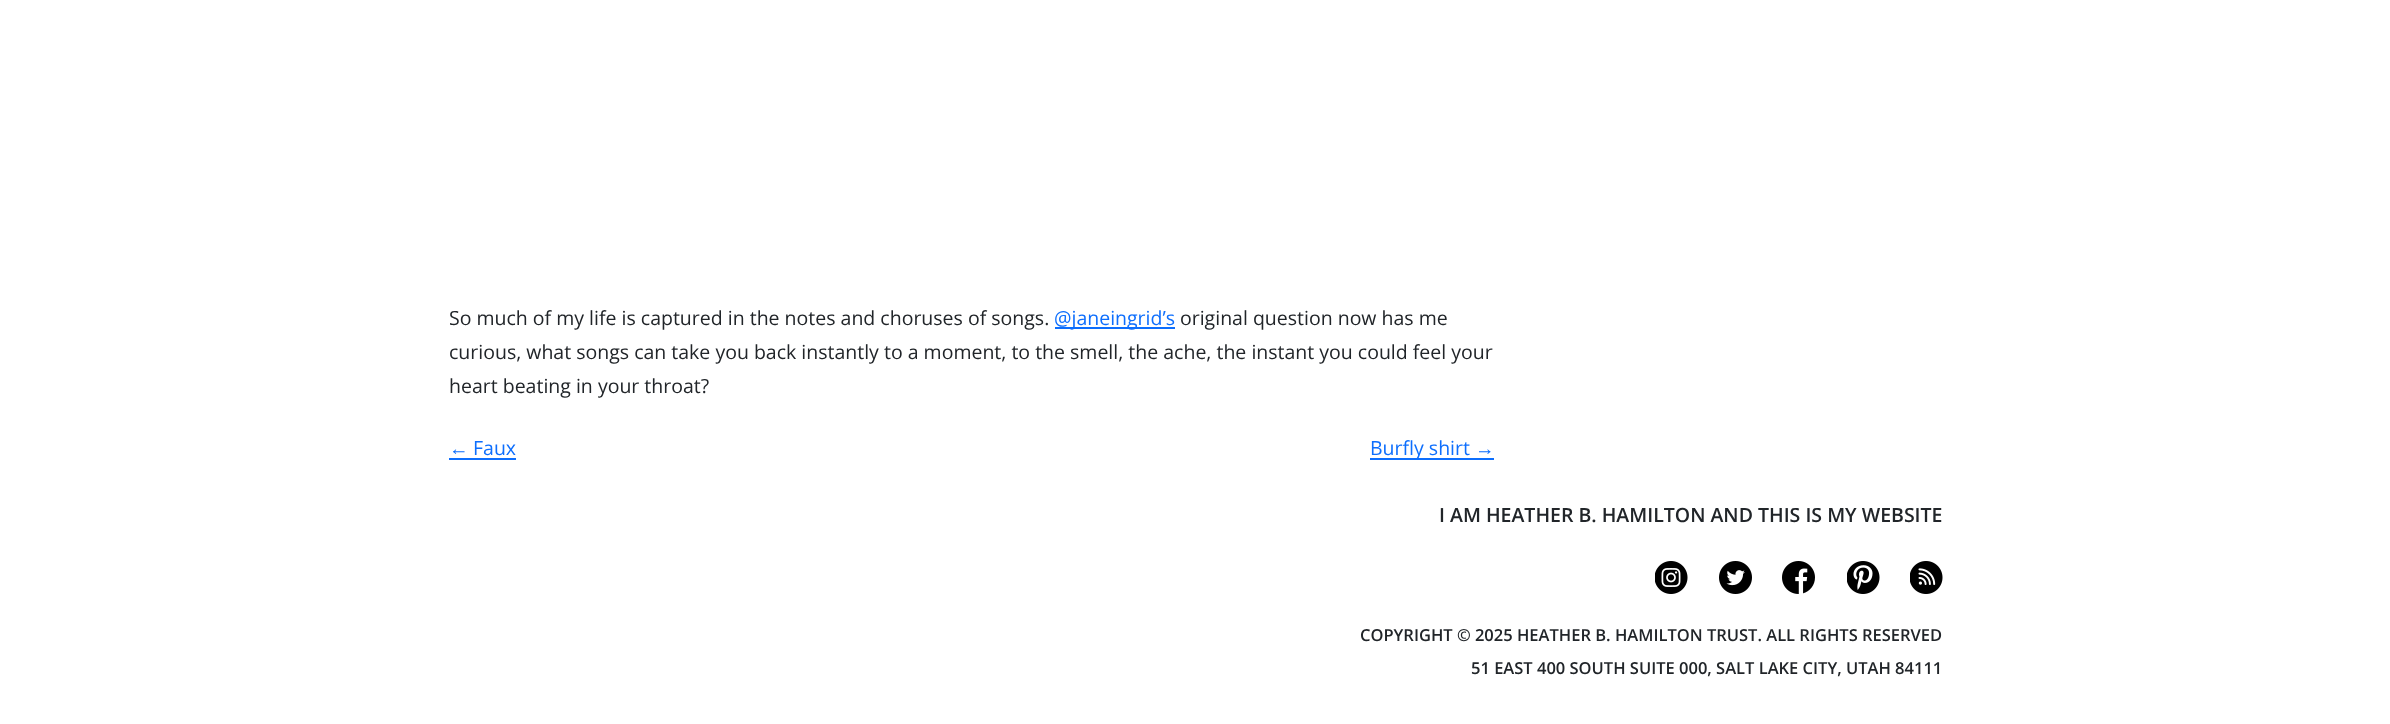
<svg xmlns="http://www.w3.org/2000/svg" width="2390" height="724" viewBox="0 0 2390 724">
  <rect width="100%" height="100%" fill="rgb(255,255,255)"/>
  <text x="449" y="325" font-family="Open Sans" font-size="19.5" fill="rgb(33,37,41)">So much of my life is captured in the notes and choruses of songs.</text>
  <rect x="1055" y="327" width="120" height="2" fill="rgb(13,110,253)"/>
  <text x="1054" y="325" font-family="Open Sans" font-size="19.5" fill="rgb(13,110,253)">@janeingrid’s</text>
  <g font-family="Open Sans" font-size="19.5" fill="rgb(33,37,41)">
    <text x="1180" y="325">original question now has me</text>
    <text>
      <tspan x="449" y="359">curious, what songs can take you back instantly to a moment, to the smell, the ache, the instant you could feel your</tspan>
      <tspan x="449" y="393">heart beating in your throat?</tspan>
    </text>
  </g>
  <text x="449" y="455" font-family="Liberation Sans" font-size="19.5" fill="rgb(13,110,253)">←</text>
  <rect x="449" y="458" width="67" height="2" fill="rgb(13,110,253)"/>
  <text x="473" y="455" font-family="Open Sans" font-size="19.5" fill="rgb(13,110,253)">Faux</text>
  <rect x="1370" y="458" width="124" height="2" fill="rgb(13,110,253)"/>
  <text x="1370" y="455" font-family="Open Sans" font-size="19.5" fill="rgb(13,110,253)">Burfly shirt</text>
  <text x="1475" y="455" font-family="Liberation Sans" font-size="19.5" fill="rgb(13,110,253)">→</text>
  <text x="1439" y="522" font-family="Open Sans" font-size="19.5" font-weight="600" fill="rgb(33,37,41)">I AM HEATHER B. HAMILTON AND THIS IS MY WEBSITE</text>
  <image x="1655" y="561" width="33" height="33" href="pic1.png"/>
  <image x="1719" y="561" width="33" height="33" href="pic2.png"/>
  <image x="1782" y="561" width="33" height="33" href="pic3.png"/>
  <image x="1847" y="561" width="33" height="33" href="pic4.png"/>
  <image x="1910" y="561" width="33" height="33" href="pic5.png"/>
  <g font-family="Open Sans" font-size="16.5" font-weight="600" fill="rgb(33,37,41)">
    <text x="1360" y="641">COPYRIGHT © 2025 HEATHER B. HAMILTON TRUST. ALL RIGHTS RESERVED</text>
    <text x="1471" y="674">51 EAST 400 SOUTH SUITE 000, SALT LAKE CITY, UTAH 84111</text>
  </g>
</svg>
